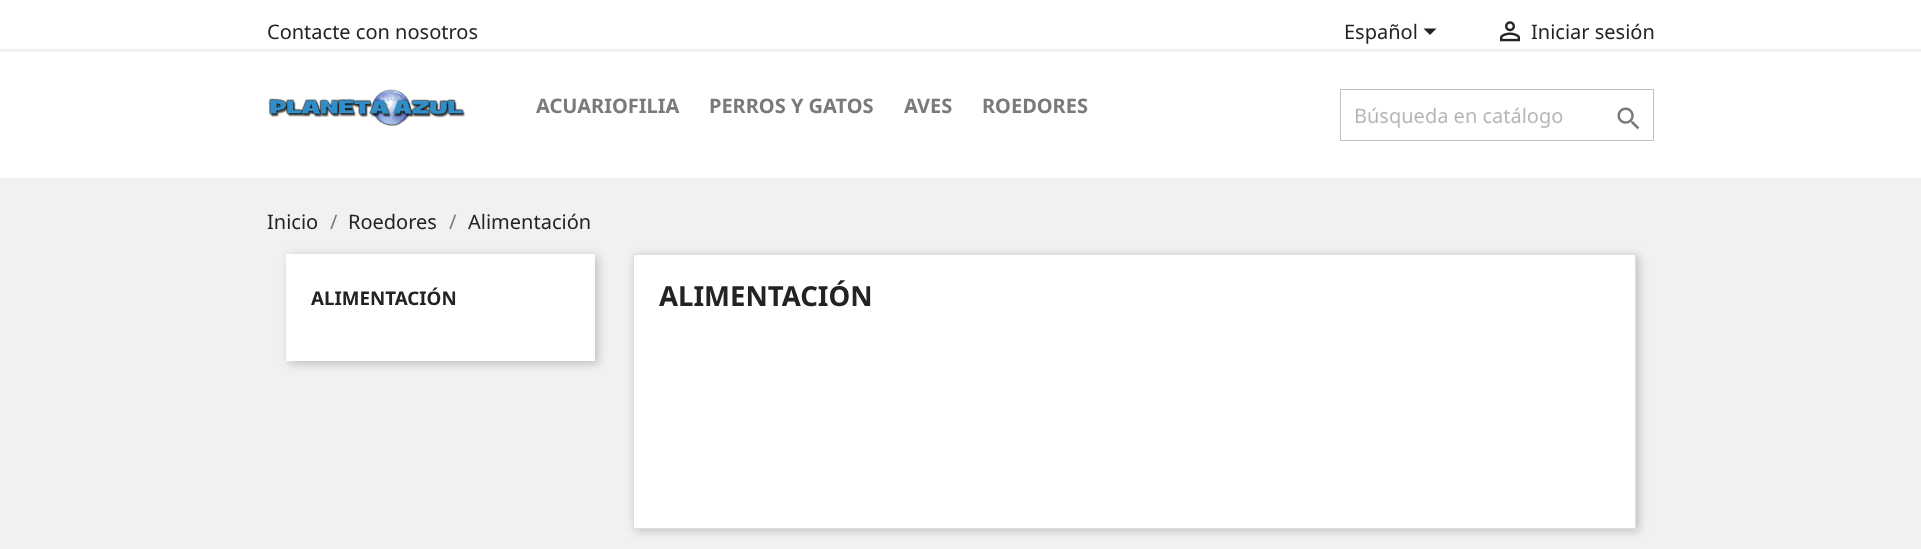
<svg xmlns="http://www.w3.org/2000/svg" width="1921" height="549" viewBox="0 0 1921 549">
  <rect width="100%" height="100%" fill="rgb(255,255,255)"/>
  <rect x="0" y="49" width="1921" height="3" fill="rgb(241,241,241)"/>
  <g font-family="Noto Sans" font-size="20" fill="rgb(35,35,35)">
    <text x="267" y="39">Contacte con nosotros</text>
    <text x="1344" y="39">Español</text>
  </g>
  <path d="M1423.5 28.5H1436.5L1430 35Z" fill="rgb(35,35,35)"/>
  <image x="1500" y="21" width="20" height="21" href="pic1.png"/>
  <text x="1531" y="39" font-family="Noto Sans" font-size="20" fill="rgb(35,35,35)">Iniciar sesión</text>
  <image x="268" y="89" width="197" height="38" href="pic2.png"/>
  <g font-family="Noto Sans" font-size="20" font-weight="bold" fill="rgb(122,122,122)">
    <text x="536" y="113">ACUARIOFILIA</text>
    <text x="709" y="113">PERROS Y GATOS</text>
    <text x="904" y="113">AVES</text>
    <text x="982" y="113">ROEDORES</text>
  </g>
  <rect x="1340.5" y="89.5" width="313" height="51" fill="none" stroke="rgb(191,191,191)"/>
  <text x="1354" y="123" font-family="Noto Sans" font-size="20" fill="rgb(183,183,183)">Búsqueda en catálogo</text>
  <image x="1617" y="107" width="23" height="23" href="pic3.png"/>
  <rect x="0" y="178" width="1921" height="371" fill="rgb(241,241,241)"/>
  <text x="267" y="229" font-family="Noto Sans" font-size="20" fill="rgb(35,35,35)">Inicio</text>
  <text x="330" y="229" font-family="Noto Sans" font-size="20" fill="rgb(122,122,122)">/</text>
  <text x="348" y="229" font-family="Noto Sans" font-size="20" fill="rgb(35,35,35)">Roedores</text>
  <text x="449" y="229" font-family="Noto Sans" font-size="20" fill="rgb(122,122,122)">/</text>
  <text x="468" y="229" font-family="Noto Sans" font-size="20" fill="rgb(35,35,35)">Alimentación</text>
  <rect x="289" y="256" width="309" height="108" fill="rgba(0,0,0,0.2)" filter="blur(5px)"/>
  <rect x="286" y="254" width="309" height="107" fill="rgb(255,255,255)"/>
  <text x="311" y="305" font-family="Noto Sans" font-size="18.75" font-weight="bold" fill="rgb(35,35,35)">ALIMENTACIÓN</text>
  <rect x="635" y="256" width="1004" height="275" fill="rgba(0,0,0,0.2)" filter="blur(5px)"/>
  <rect x="633.5" y="254.5" width="1002" height="274" fill="rgb(255,255,255)" stroke="rgb(223,223,223)"/>
  <text x="659" y="306" font-family="Noto Sans" font-size="27.5" font-weight="bold" fill="rgb(35,35,35)">ALIMENTACIÓN</text>
</svg>
